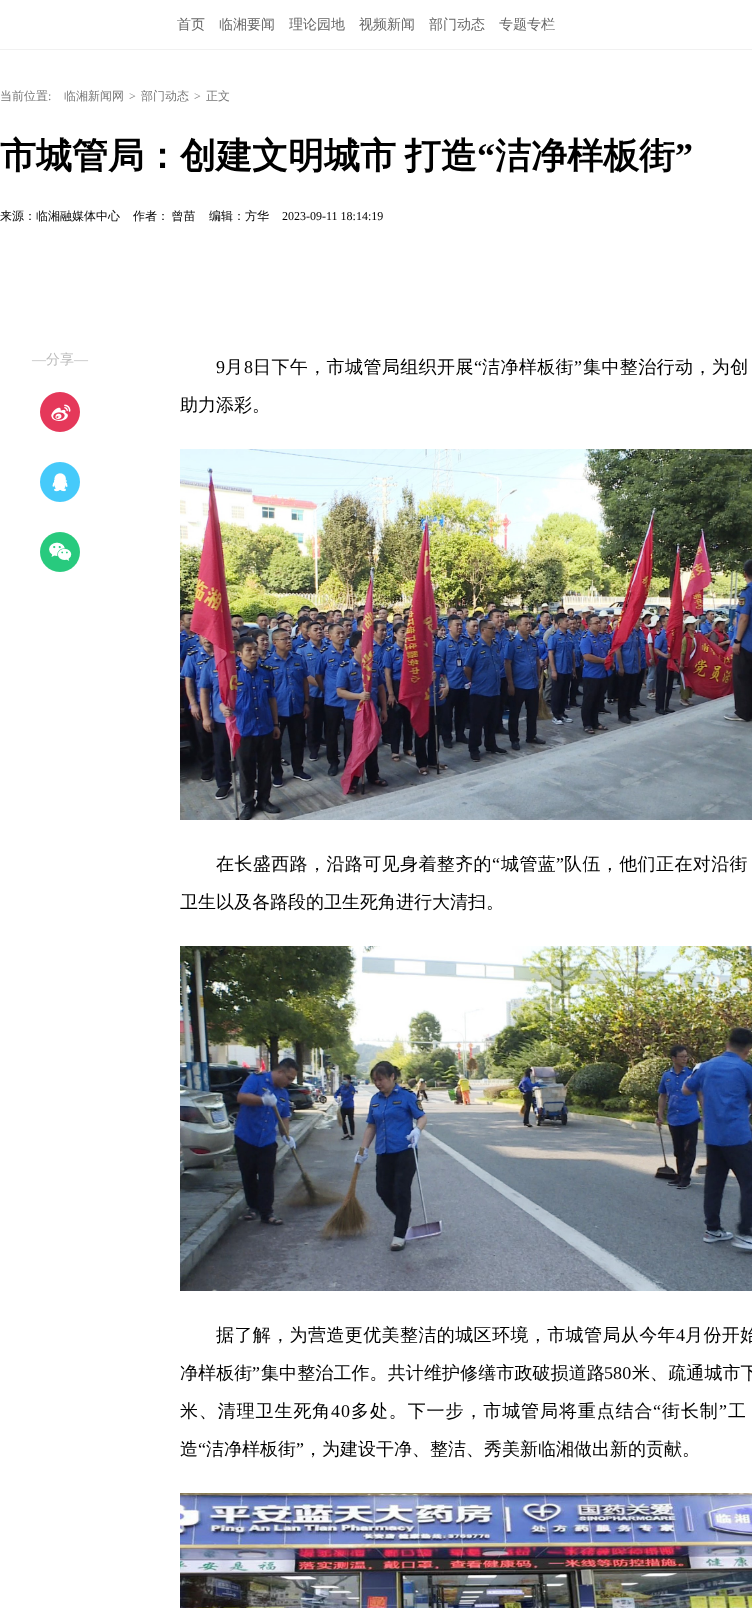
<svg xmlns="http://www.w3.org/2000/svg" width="752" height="1608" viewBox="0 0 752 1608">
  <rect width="100%" height="100%" fill="rgb(255,255,255)"/>
  <rect x="0" y="49" width="752" height="1" fill="rgb(241,241,241)"/>
  <g font-family="WenQuanYi Zen Hei" font-size="14" font-weight="500" fill="rgb(102,102,102)">
    <text x="177" y="29">首页</text>
    <text x="219" y="29">临湘要闻</text>
    <text x="289" y="29">理论园地</text>
    <text x="359" y="29">视频新闻</text>
    <text x="429" y="29">部门动态</text>
    <text x="499" y="29">专题专栏</text>
  </g>
  <text x="0" y="100" font-family="WenQuanYi Zen Hei" font-size="12" font-weight="500" fill="rgb(119,119,119)">当前位置</text>
  <text x="48" y="100" font-family="Liberation Serif" font-size="12" fill="rgb(119,119,119)">:</text>
  <text x="64" y="100" font-family="WenQuanYi Zen Hei" font-size="12" font-weight="500" fill="rgb(119,119,119)">临湘新闻网</text>
  <text x="129" y="100" font-family="Liberation Serif" font-size="12" fill="rgb(119,119,119)">&gt;</text>
  <text x="141" y="100" font-family="WenQuanYi Zen Hei" font-size="12" font-weight="500" fill="rgb(119,119,119)">部门动态</text>
  <text x="194" y="100" font-family="Liberation Serif" font-size="12" fill="rgb(119,119,119)">&gt;</text>
  <text x="206" y="100" font-family="WenQuanYi Zen Hei" font-size="12" font-weight="500" fill="rgb(119,119,119)">正文</text>
  <text x="0" y="168" word-spacing="-2" font-family="WenQuanYi Zen Hei" font-size="36" font-weight="bold" fill="rgb(0,0,0)">市城管局：创建文明城市 打造</text>
  <text x="477" y="168" font-family="Liberation Serif" font-size="36" font-weight="bold" fill="rgb(0,0,0)">“</text>
  <text x="495" y="168" font-family="WenQuanYi Zen Hei" font-size="36" font-weight="bold" fill="rgb(0,0,0)">洁净样板街</text>
  <text x="675" y="168" font-family="Liberation Serif" font-size="36" font-weight="bold" fill="rgb(0,0,0)">”</text>
  <g font-family="WenQuanYi Zen Hei" font-size="12" font-weight="500" fill="rgb(0,0,0)">
    <text x="0" y="220">来源：临湘融媒体中心</text>
    <text x="133" y="220" word-spacing="-1">作者： 曾苗</text>
    <text x="209" y="220">编辑：方华</text>
  </g>
  <text x="282" y="220" font-family="Liberation Serif" font-size="12" fill="rgb(0,0,0)">2023-09-11 18:14:19</text>
  <text x="32" y="364" font-family="Liberation Serif" font-size="14" fill="rgb(187,187,187)">—</text>
  <text x="46" y="364" font-family="WenQuanYi Zen Hei" font-size="14" font-weight="500" fill="rgb(187,187,187)">分享</text>
  <text x="74" y="364" font-family="Liberation Serif" font-size="14" fill="rgb(187,187,187)">—</text>
  <image x="40" y="392" width="40" height="40" href="pic1.png"/>
  <image x="40" y="462" width="40" height="40" href="pic2.png"/>
  <image x="40" y="532" width="40" height="40" href="pic3.png"/>
  <text x="216" y="373" font-family="Liberation Serif" font-size="18" letter-spacing="0.4" fill="rgb(0,0,0)">9</text>
  <text x="225" y="373" font-family="WenQuanYi Zen Hei" font-size="18" font-weight="500" letter-spacing="0.4" fill="rgb(0,0,0)">月</text>
  <text x="244" y="373" font-family="Liberation Serif" font-size="18" letter-spacing="0.4" fill="rgb(0,0,0)">8</text>
  <text x="253" y="373" font-family="WenQuanYi Zen Hei" font-size="18" font-weight="500" letter-spacing="0.4" fill="rgb(0,0,0)">日下午，市城管局组织开展</text>
  <text x="474" y="373" font-family="Liberation Serif" font-size="18" letter-spacing="0.4" fill="rgb(0,0,0)">“</text>
  <text x="482" y="373" font-family="WenQuanYi Zen Hei" font-size="18" font-weight="500" letter-spacing="0.4" fill="rgb(0,0,0)">洁净样板街</text>
  <text x="574" y="373" font-family="Liberation Serif" font-size="18" letter-spacing="0.4" fill="rgb(0,0,0)">”</text>
  <text x="583" y="373" font-family="WenQuanYi Zen Hei" font-size="18" font-weight="500" letter-spacing="0.4" fill="rgb(0,0,0)">集中整治行动，为创</text>
  <text x="180" y="411" font-family="WenQuanYi Zen Hei" font-size="18" font-weight="500" fill="rgb(0,0,0)">助力添彩。</text>
  <image x="180" y="449" width="572" height="371" href="pic4.png"/>
  <text x="216" y="870" font-family="WenQuanYi Zen Hei" font-size="18" font-weight="500" letter-spacing="0.4" fill="rgb(0,0,0)">在长盛西路，沿路可见身着整齐的</text>
  <text x="492" y="870" font-family="Liberation Serif" font-size="18" letter-spacing="0.4" fill="rgb(0,0,0)">“</text>
  <text x="501" y="870" font-family="WenQuanYi Zen Hei" font-size="18" font-weight="500" letter-spacing="0.4" fill="rgb(0,0,0)">城管蓝</text>
  <text x="556" y="870" font-family="Liberation Serif" font-size="18" letter-spacing="0.4" fill="rgb(0,0,0)">”</text>
  <text x="564" y="870" font-family="WenQuanYi Zen Hei" font-size="18" font-weight="500" letter-spacing="0.4" fill="rgb(0,0,0)">队伍，他们正在对沿街</text>
  <text x="180" y="908" font-family="WenQuanYi Zen Hei" font-size="18" font-weight="500" fill="rgb(0,0,0)">卫生以及各路段的卫生死角进行大清扫。</text>
  <image x="180" y="946" width="572" height="345" href="pic5.png"/>
  <text x="216" y="1341" font-family="WenQuanYi Zen Hei" font-size="18" font-weight="500" letter-spacing="0.4" fill="rgb(0,0,0)">据了解，为营造更优美整洁的城区环境，市城管局从今年</text>
  <text x="676" y="1341" font-family="Liberation Serif" font-size="18" letter-spacing="0.4" fill="rgb(0,0,0)">4</text>
  <text x="685" y="1341" font-family="WenQuanYi Zen Hei" font-size="18" font-weight="500" letter-spacing="0.4" fill="rgb(0,0,0)">月份开始</text>
  <text x="180" y="1379" font-family="WenQuanYi Zen Hei" font-size="18" font-weight="500" letter-spacing="0.1" fill="rgb(0,0,0)">净样板街</text>
  <text x="252" y="1379" font-family="Liberation Serif" font-size="18" letter-spacing="0.1" fill="rgb(0,0,0)">”</text>
  <text x="261" y="1379" font-family="WenQuanYi Zen Hei" font-size="18" font-weight="500" letter-spacing="0.1" fill="rgb(0,0,0)">集中整治工作。共计维护修缮市政破损道路</text>
  <text x="604" y="1379" font-family="Liberation Serif" font-size="18" letter-spacing="0.1" fill="rgb(0,0,0)">580</text>
  <text x="632" y="1379" font-family="WenQuanYi Zen Hei" font-size="18" font-weight="500" letter-spacing="0.1" fill="rgb(0,0,0)">米、疏通城市下</text>
  <text x="180" y="1417" font-family="WenQuanYi Zen Hei" font-size="18" font-weight="500" letter-spacing="0.9" fill="rgb(0,0,0)">米、清理卫生死角</text>
  <text x="331" y="1417" font-family="Liberation Serif" font-size="18" letter-spacing="0.9" fill="rgb(0,0,0)">40</text>
  <text x="351" y="1417" font-family="WenQuanYi Zen Hei" font-size="18" font-weight="500" letter-spacing="0.9" fill="rgb(0,0,0)">多处。下一步，市城管局将重点结合</text>
  <text x="653" y="1417" font-family="Liberation Serif" font-size="18" letter-spacing="0.9" fill="rgb(0,0,0)">“</text>
  <text x="662" y="1417" font-family="WenQuanYi Zen Hei" font-size="18" font-weight="500" letter-spacing="0.9" fill="rgb(0,0,0)">街长制</text>
  <text x="719" y="1417" font-family="Liberation Serif" font-size="18" letter-spacing="0.9" fill="rgb(0,0,0)">”</text>
  <text x="728" y="1417" font-family="WenQuanYi Zen Hei" font-size="18" font-weight="500" letter-spacing="0.9" fill="rgb(0,0,0)">工</text>
  <text x="180" y="1455" font-family="WenQuanYi Zen Hei" font-size="18" font-weight="500" fill="rgb(0,0,0)">造</text>
  <text x="198" y="1455" font-family="Liberation Serif" font-size="18" fill="rgb(0,0,0)">“</text>
  <text x="206" y="1455" font-family="WenQuanYi Zen Hei" font-size="18" font-weight="500" fill="rgb(0,0,0)">洁净样板街</text>
  <text x="296" y="1455" font-family="Liberation Serif" font-size="18" fill="rgb(0,0,0)">”</text>
  <text x="304" y="1455" font-family="WenQuanYi Zen Hei" font-size="18" font-weight="500" fill="rgb(0,0,0)">，为建设干净、整洁、秀美新临湘做出新的贡献。</text>
  <image x="180" y="1493" width="572" height="115" href="pic6.png"/>
</svg>
